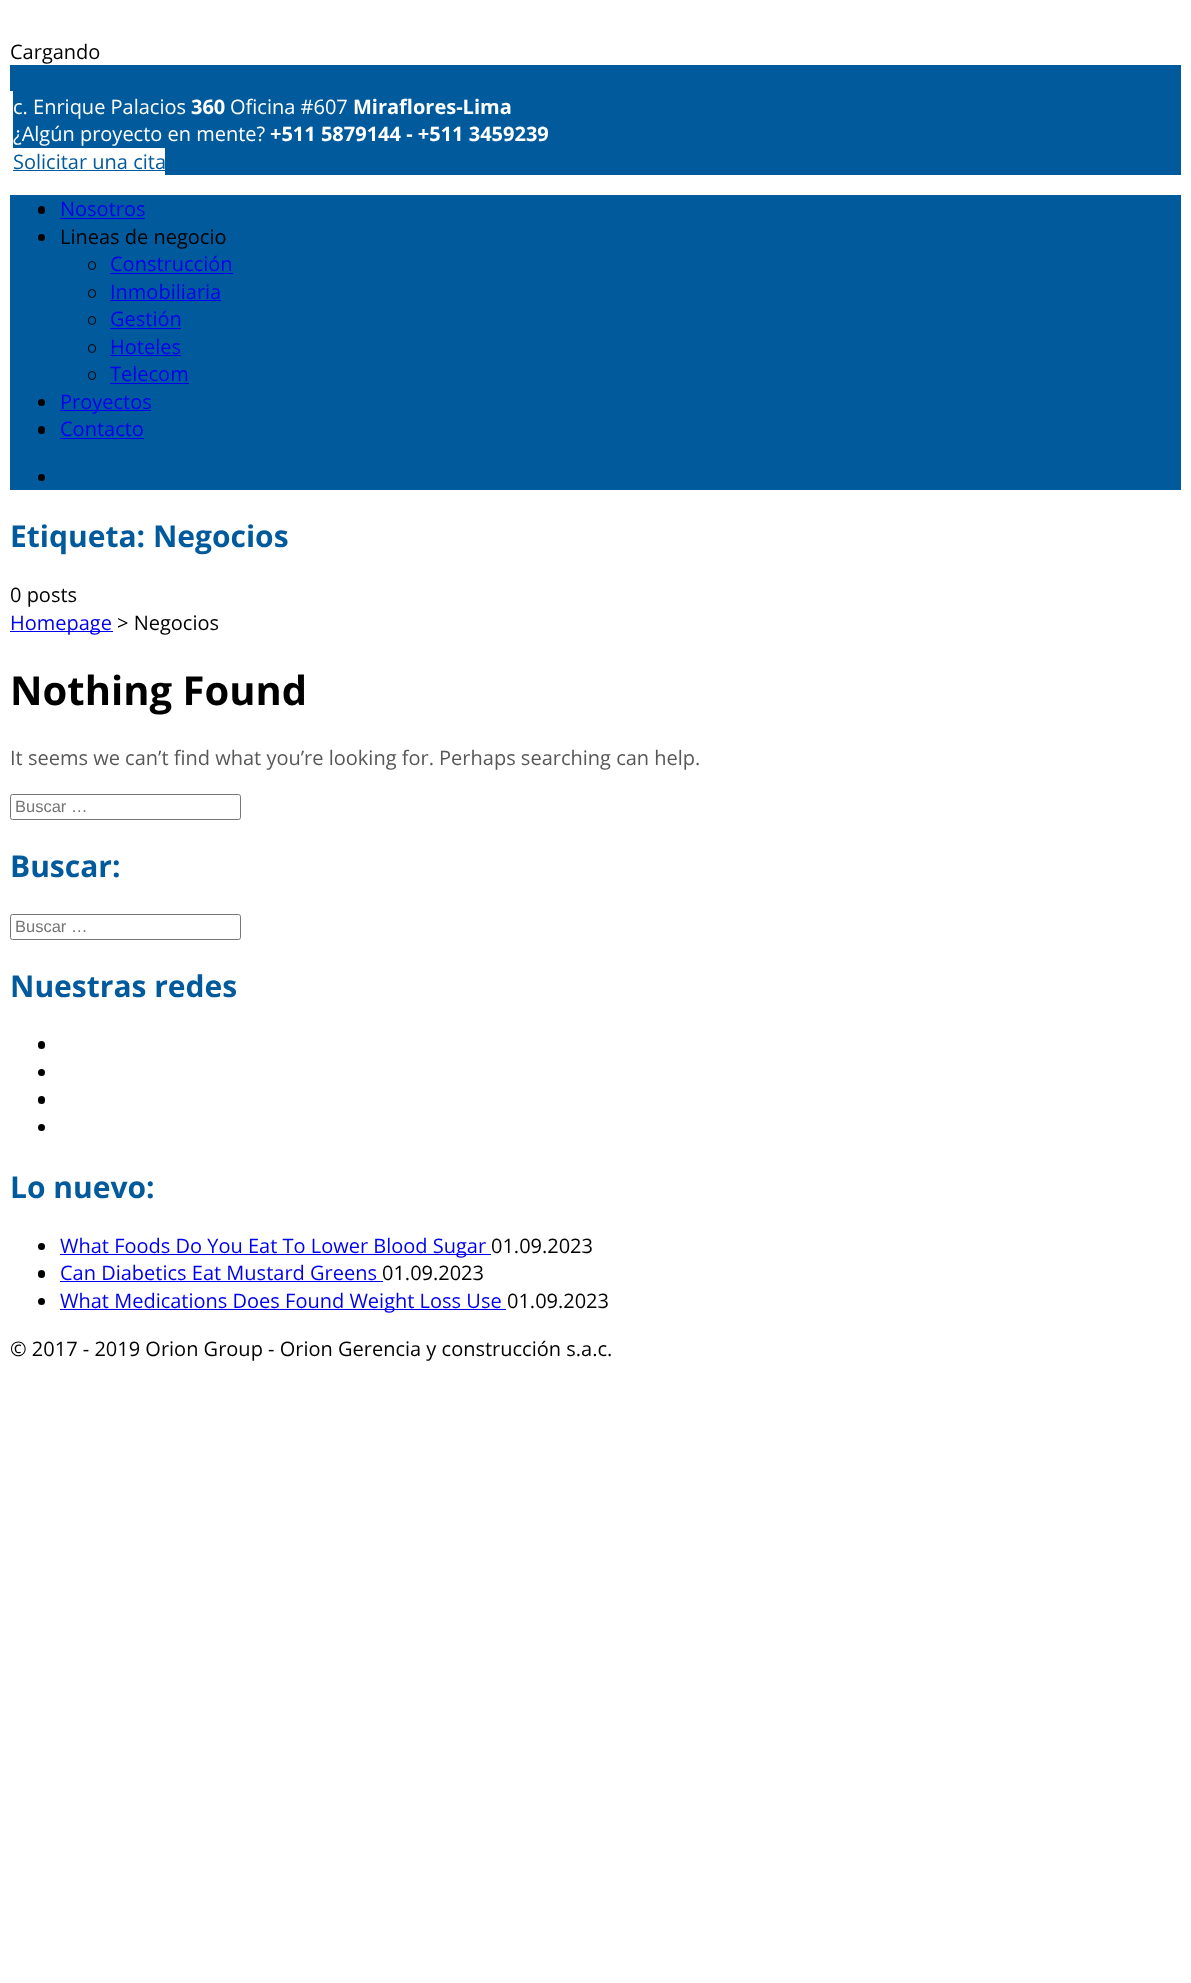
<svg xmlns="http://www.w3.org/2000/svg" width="1191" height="1983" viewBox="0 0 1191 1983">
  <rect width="100%" height="100%" fill="rgb(255,255,255)"/>
  <text x="10" y="59" font-family="Open Sans" font-size="20" fill="rgb(0,0,0)">Cargando</text>
  <rect x="10" y="65" width="1171" height="110" fill="rgb(1,90,156)"/>
  <rect x="10" y="91" width="3" height="85" fill="rgb(255,255,255)"/>
  <text x="13" y="114" font-family="Open Sans" font-size="20" fill="rgb(255,255,255)">c. Enrique Palacios</text>
  <text x="191" y="114" font-family="Open Sans" font-size="20" font-weight="bold" fill="rgb(255,255,255)">360</text>
  <text x="230" y="114" font-family="Open Sans" font-size="20" fill="rgb(255,255,255)">Oficina #607</text>
  <text x="353" y="114" font-family="Open Sans" font-size="20" font-weight="bold" fill="rgb(255,255,255)">Miraflores-Lima</text>
  <text x="13" y="141" font-family="Open Sans" font-size="20" fill="rgb(255,255,255)">¿Algún proyecto en mente?</text>
  <text x="270" y="141" font-family="Open Sans" font-size="20" font-weight="bold" fill="rgb(255,255,255)">+511 5879144 - +511 3459239</text>
  <rect x="13" y="148" width="152" height="27" fill="rgb(255,255,255)"/>
  <text x="13" y="169" font-family="Open Sans" font-size="20" fill="rgb(1,90,156)">Solicitar una cita</text>
  <rect x="13" y="170" width="152" height="1" fill="rgb(1,90,156)"/>
  <rect x="10" y="195" width="1171" height="295" fill="rgb(1,90,156)"/>
  <rect x="38" y="206" width="7" height="8" rx="3.5" fill="rgb(0,0,0)"/>
  <text x="60" y="216" font-family="Open Sans" font-size="20" fill="rgb(0,0,238)">Nosotros</text>
  <rect x="60" y="218" width="85" height="1" fill="rgb(0,0,238)"/>
  <circle cx="41.5" cy="237.5" r="3.5" fill="rgb(0,0,0)"/>
  <text x="60" y="244" font-family="Open Sans" font-size="20" fill="rgb(0,0,0)">Lineas de negocio</text>
  <rect x="88.5" y="261.5" width="7" height="8" rx="3.5" fill="none" stroke="rgb(0,0,0)"/>
  <text x="110" y="271" font-family="Open Sans" font-size="20" fill="rgb(0,0,238)">Construcción</text>
  <rect x="110" y="273" width="123" height="1" fill="rgb(0,0,238)"/>
  <rect x="88.5" y="289.5" width="7" height="8" rx="3.5" fill="none" stroke="rgb(0,0,0)"/>
  <text x="110" y="299" font-family="Open Sans" font-size="20" fill="rgb(0,0,238)">Inmobiliaria</text>
  <rect x="110" y="300" width="111" height="1" fill="rgb(0,0,238)"/>
  <rect x="88.5" y="316.5" width="7" height="8" rx="3.5" fill="none" stroke="rgb(0,0,0)"/>
  <text x="110" y="326" font-family="Open Sans" font-size="20" fill="rgb(0,0,238)">Gestión</text>
  <rect x="110" y="328" width="71" height="1" fill="rgb(0,0,238)"/>
  <rect x="88.5" y="344.5" width="7" height="8" rx="3.5" fill="none" stroke="rgb(0,0,0)"/>
  <text x="110" y="354" font-family="Open Sans" font-size="20" fill="rgb(0,0,238)">Hoteles</text>
  <rect x="110" y="355" width="71" height="1" fill="rgb(0,0,238)"/>
  <rect x="88.5" y="371.5" width="7" height="8" rx="3.5" fill="none" stroke="rgb(0,0,0)"/>
  <text x="110" y="381" font-family="Open Sans" font-size="20" fill="rgb(0,0,238)">Telecom</text>
  <rect x="110" y="383" width="79" height="1" fill="rgb(0,0,238)"/>
  <circle cx="41.5" cy="402.5" r="3.5" fill="rgb(0,0,0)"/>
  <rect x="60" y="410" width="91" height="1" fill="rgb(0,0,238)"/>
  <text x="60" y="409" font-family="Open Sans" font-size="20" fill="rgb(0,0,238)">Proyectos</text>
  <rect x="38" y="426" width="7" height="8" rx="3.5" fill="rgb(0,0,0)"/>
  <text x="60" y="436" font-family="Open Sans" font-size="20" fill="rgb(0,0,238)">Contacto</text>
  <rect x="60" y="438" width="84" height="1" fill="rgb(0,0,238)"/>
  <circle cx="41.5" cy="477.5" r="3.5" fill="rgb(0,0,0)"/>
  <text x="10" y="547" font-family="Open Sans" font-size="30" font-weight="bold" fill="rgb(1,90,156)">Etiqueta: Negocios</text>
  <text x="10" y="602" font-family="Open Sans" font-size="20" fill="rgb(0,0,0)">0 posts</text>
  <rect x="10" y="631" width="103" height="1" fill="rgb(0,0,238)"/>
  <text x="10" y="630" font-family="Open Sans" font-size="20" fill="rgb(0,0,238)">Homepage</text>
  <text x="117" y="630" font-family="Open Sans" font-size="20" fill="rgb(0,0,0)">&gt; Negocios</text>
  <text x="10" y="705" font-family="Open Sans" font-size="40" font-weight="bold" fill="rgb(0,0,0)">Nothing Found</text>
  <text x="10" y="765" font-family="Open Sans" font-size="20" fill="rgb(88,88,88)">It seems we can’t find what you’re looking for. Perhaps searching can help.</text>
  <rect x="10.5" y="794.5" width="230" height="25" rx="2" fill="none" stroke="rgb(118,118,118)"/>
  <text x="15" y="812" font-family="Liberation Sans" font-size="16.5" fill="rgb(117,117,117)">Buscar …</text>
  <text x="10" y="877" font-family="Open Sans" font-size="30" font-weight="bold" fill="rgb(1,90,156)">Buscar:</text>
  <rect x="10.5" y="914.5" width="230" height="25" rx="2" fill="none" stroke="rgb(118,118,118)"/>
  <text x="15" y="932" font-family="Liberation Sans" font-size="16.5" fill="rgb(117,117,117)">Buscar …</text>
  <text x="10" y="997" font-family="Open Sans" font-size="30" font-weight="bold" fill="rgb(1,90,156)">Nuestras redes</text>
  <rect x="38" y="1041" width="7" height="8" rx="3.5" fill="rgb(0,0,0)"/>
  <circle cx="41.5" cy="1072.5" r="3.5" fill="rgb(0,0,0)"/>
  <rect x="38" y="1096" width="7" height="8" rx="3.5" fill="rgb(0,0,0)"/>
  <circle cx="41.5" cy="1127.5" r="3.5" fill="rgb(0,0,0)"/>
  <text x="10" y="1198" font-family="Open Sans" font-size="30" font-weight="bold" fill="rgb(1,90,156)">Lo nuevo:</text>
  <circle cx="41.5" cy="1246.5" r="3.5" fill="rgb(0,0,0)"/>
  <rect x="60" y="1254" width="431" height="1" fill="rgb(0,0,238)"/>
  <text x="60" y="1253" font-family="Open Sans" font-size="20" fill="rgb(0,0,238)">What Foods Do You Eat To Lower Blood Sugar</text>
  <text x="491" y="1253" font-family="Open Sans" font-size="20" fill="rgb(0,0,0)">01.09.2023</text>
  <rect x="38" y="1270" width="7" height="8" rx="3.5" fill="rgb(0,0,0)"/>
  <text x="60" y="1280" font-family="Open Sans" font-size="20" fill="rgb(0,0,238)">Can Diabetics Eat Mustard Greens</text>
  <text x="382" y="1280" font-family="Open Sans" font-size="20" fill="rgb(0,0,0)">01.09.2023</text>
  <rect x="60" y="1281" width="323" height="1" fill="rgb(0,0,238)"/>
  <circle cx="41.5" cy="1301.5" r="3.5" fill="rgb(0,0,0)"/>
  <rect x="60" y="1309" width="446" height="1" fill="rgb(0,0,238)"/>
  <text x="60" y="1308" font-family="Open Sans" font-size="20" fill="rgb(0,0,238)">What Medications Does Found Weight Loss Use</text>
  <g font-family="Open Sans" font-size="20" fill="rgb(0,0,0)">
    <text x="507" y="1308">01.09.2023</text>
    <text x="10" y="1356">© 2017 - 2019 Orion Group - Orion Gerencia y construcción s.a.c.</text>
  </g>
</svg>
